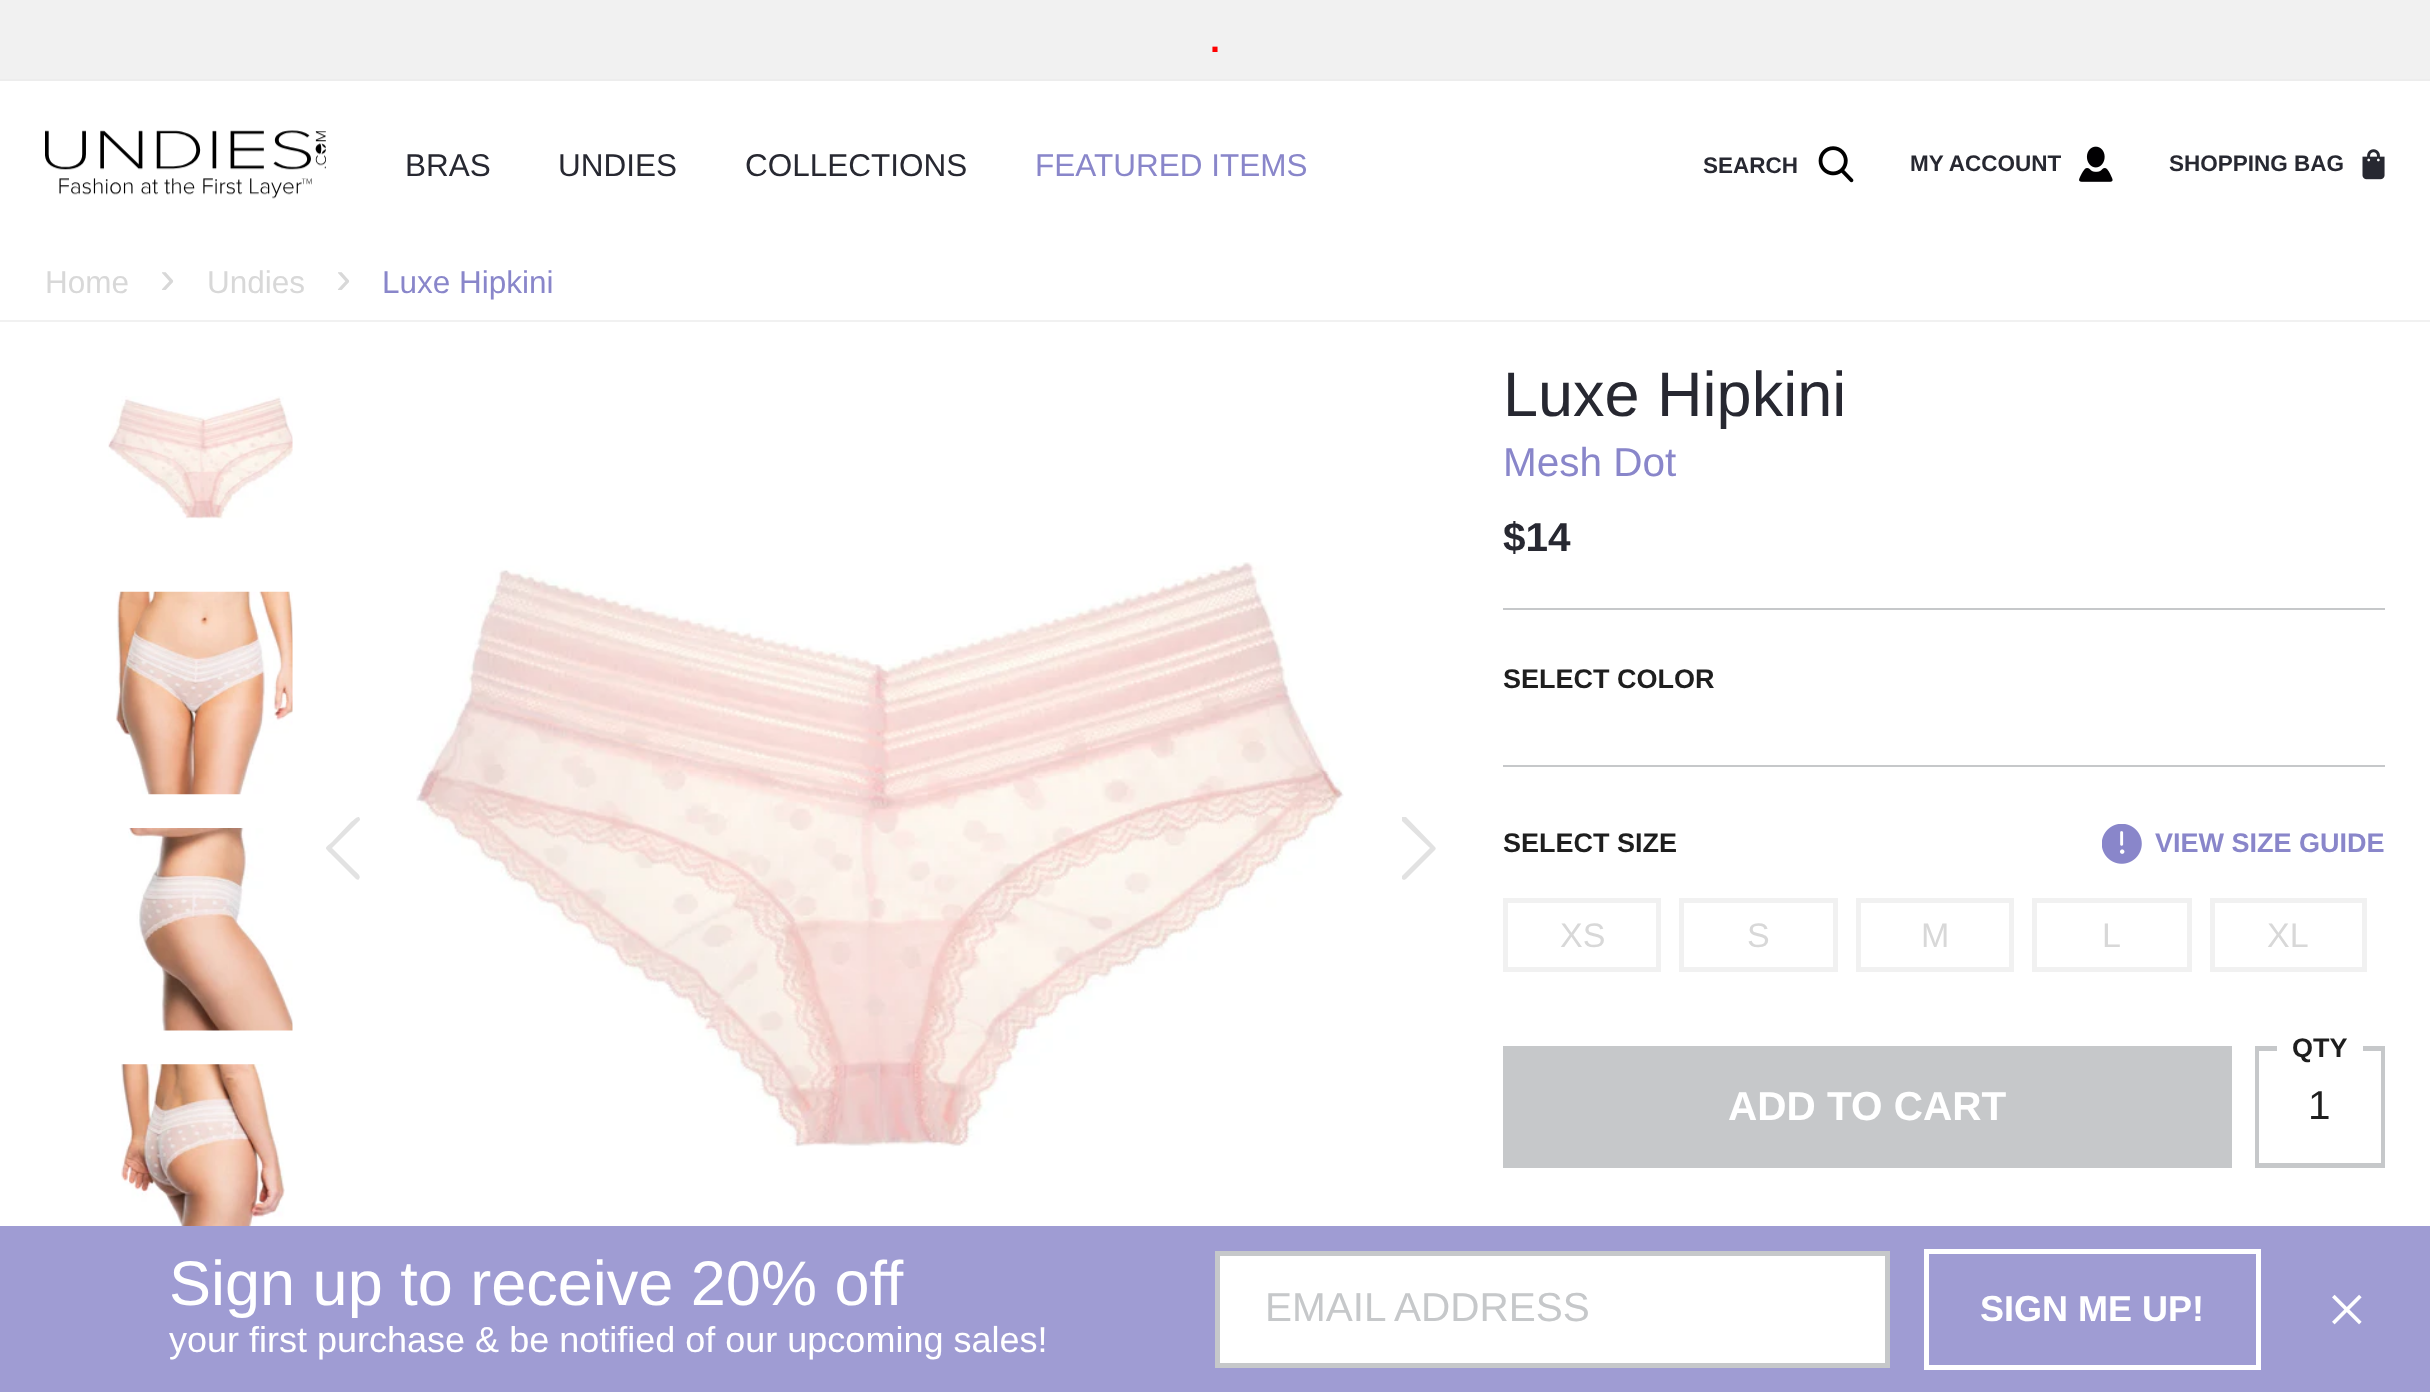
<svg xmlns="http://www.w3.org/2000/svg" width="2430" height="1392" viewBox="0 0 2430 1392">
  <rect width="100%" height="100%" fill="rgb(255,255,255)"/>
  <rect x="0" y="0" width="2430" height="79" fill="rgb(241,241,241)"/>
  <rect x="0" y="79" width="2430" height="2" fill="rgb(237,237,237)"/>
  <text x="1210" y="52" font-family="Liberation Sans" font-size="36" font-weight="bold" fill="rgb(255,0,0)">.</text>
  <image x="45" y="130" width="281" height="69" href="pic1.png"/>
  <g font-family="Liberation Sans" font-size="31.5" fill="rgb(39,40,49)">
    <text x="405" y="176">BRAS</text>
    <text x="558" y="176">UNDIES</text>
    <text x="745" y="176">COLLECTIONS</text>
  </g>
  <text x="1035" y="176" font-family="Liberation Sans" font-size="31.5" fill="rgb(137,134,202)">FEATURED ITEMS</text>
  <text x="1703" y="173" font-family="Liberation Sans" font-size="22.5" font-weight="bold" fill="rgb(39,40,49)">SEARCH</text>
  <image x="1818" y="146" width="36" height="37" href="pic2.png"/>
  <text x="1910" y="171" font-family="Liberation Sans" font-size="22.5" font-weight="bold" fill="rgb(39,40,49)">MY ACCOUNT</text>
  <image x="2079" y="146" width="34" height="36" href="pic3.png"/>
  <text x="2169" y="171" font-family="Liberation Sans" font-size="22.5" font-weight="bold" fill="rgb(39,40,49)">SHOPPING BAG</text>
  <image x="2362" y="149" width="23" height="31" href="pic4.png"/>
  <rect x="0" y="320" width="2430" height="2" fill="rgb(241,241,241)"/>
  <text x="45" y="293" font-family="Liberation Sans" font-size="31.5" fill="rgb(216,216,216)">Home</text>
  <text x="160" y="293" font-family="Liberation Sans" font-size="45" fill="rgb(216,216,216)">›</text>
  <text x="207" y="293" font-family="Liberation Sans" font-size="31.5" fill="rgb(216,216,216)">Undies</text>
  <text x="336" y="293" font-family="Liberation Sans" font-size="45" fill="rgb(216,216,216)">›</text>
  <text x="382" y="293" font-family="Liberation Sans" font-size="31.5" fill="rgb(137,134,202)">Luxe Hipkini</text>
  <image x="108" y="396" width="185" height="123" href="pic5.png"/>
  <image x="115" y="591" width="178" height="204" href="pic6.png"/>
  <image x="128" y="828" width="165" height="203" href="pic7.png"/>
  <image x="121" y="1064" width="164" height="162" href="pic8.png"/>
  <path d="M356 879C357 880 359 880 359 879C362 876 356 872 355 871L332 848L360 820V819C359 814 355 819 351 822L332 842C324 849 324 847 332 855Z" fill="rgb(226,226,226)" fill-rule="evenodd"/>
  <image x="416" y="562" width="928" height="585" href="pic9.png"/>
  <path d="M1404 880L1402 879C1402 878 1402 877 1402 876L1430 848L1402 821C1402 820 1402 818 1402 817C1403 817 1405 817 1406 817L1435 847C1436 848 1436 849 1435 850L1406 879Z" fill="rgb(226,226,226)" fill-rule="evenodd"/>
  <text x="1503" y="416" font-family="Liberation Sans" font-size="63" fill="rgb(39,40,49)">Luxe Hipkini</text>
  <text x="1503" y="476" font-family="Liberation Sans" font-size="40.5" fill="rgb(137,134,202)">Mesh Dot</text>
  <text x="1503" y="551" font-family="Liberation Sans" font-size="40.5" font-weight="bold" fill="rgb(39,40,49)">$14</text>
  <rect x="1503" y="608" width="882" height="2" fill="rgb(198,200,202)"/>
  <rect x="1503" y="765" width="882" height="2" fill="rgb(198,200,202)"/>
  <g font-family="Liberation Sans" font-size="27" font-weight="bold" fill="rgb(30,30,30)">
    <text x="1503" y="688">SELECT COLOR</text>
    <text x="1503" y="852">SELECT SIZE</text>
  </g>
  <image x="2102" y="824" width="40" height="40" href="pic10.png"/>
  <text x="2155" y="852" font-family="Liberation Sans" font-size="27" font-weight="bold" fill="rgb(137,134,202)">VIEW SIZE GUIDE</text>
  <rect x="1505.5" y="900.5" width="153" height="69" fill="none" stroke="rgb(241,241,241)" stroke-width="5"/>
  <text x="1560" y="947" font-family="Liberation Sans" font-size="34" fill="rgb(216,216,216)">XS</text>
  <rect x="1681.5" y="900.5" width="154" height="69" fill="none" stroke="rgb(241,241,241)" stroke-width="5"/>
  <text x="1747" y="947" font-family="Liberation Sans" font-size="34" fill="rgb(216,216,216)">S</text>
  <rect x="1858.5" y="900.5" width="153" height="69" fill="none" stroke="rgb(241,241,241)" stroke-width="5"/>
  <text x="1921" y="947" font-family="Liberation Sans" font-size="34" fill="rgb(216,216,216)">M</text>
  <rect x="2034.5" y="900.5" width="155" height="69" fill="none" stroke="rgb(241,241,241)" stroke-width="5"/>
  <text x="2102" y="947" font-family="Liberation Sans" font-size="34" fill="rgb(216,216,216)">L</text>
  <rect x="2212.5" y="900.5" width="152" height="69" fill="none" stroke="rgb(241,241,241)" stroke-width="5"/>
  <text x="2267" y="947" font-family="Liberation Sans" font-size="34" fill="rgb(216,216,216)">XL</text>
  <rect x="1503" y="1046" width="729" height="122" fill="rgb(198,200,202)"/>
  <text x="1728" y="1120" font-family="Liberation Sans" font-size="40.5" font-weight="bold" fill="rgb(255,255,255)">ADD TO CART</text>
  <rect x="2257.5" y="1048.5" width="125" height="117" fill="none" stroke="rgb(198,200,202)" stroke-width="5"/>
  <rect x="2277" y="1046" width="86" height="5" fill="rgb(255,255,255)"/>
  <rect x="2259" y="1051" width="122" height="112" fill="rgb(255,255,255)"/>
  <text x="2292" y="1057" font-family="Liberation Sans" font-size="27" font-weight="bold" fill="rgb(30,30,30)">QTY</text>
  <text x="2308" y="1119" font-family="Liberation Sans" font-size="40.5" fill="rgb(30,30,30)">1</text>
  <rect x="0" y="1226" width="2430" height="166" fill="rgb(159,156,211)"/>
  <text x="169" y="1305" font-family="Liberation Sans" font-size="63" fill="rgb(255,255,255)">Sign up to receive 20% off</text>
  <text x="169" y="1352" font-family="Liberation Sans" font-size="36" fill="rgb(255,255,255)">your first purchase &amp; be notified of our upcoming sales!</text>
  <rect x="1217.5" y="1253.5" width="670" height="112" fill="rgb(255,255,255)" stroke="rgb(198,200,202)" stroke-width="5"/>
  <text x="1265" y="1321" font-family="Liberation Sans" font-size="40.5" fill="rgb(198,200,202)">EMAIL ADDRESS</text>
  <rect x="1926.5" y="1251.5" width="332" height="116" fill="none" stroke="rgb(255,255,255)" stroke-width="5"/>
  <text x="1980" y="1321" font-family="Liberation Sans" font-size="36" font-weight="bold" fill="rgb(255,255,255)">SIGN ME UP!</text>
  <image x="2332" y="1294" width="30" height="31" href="pic11.png"/>
</svg>
